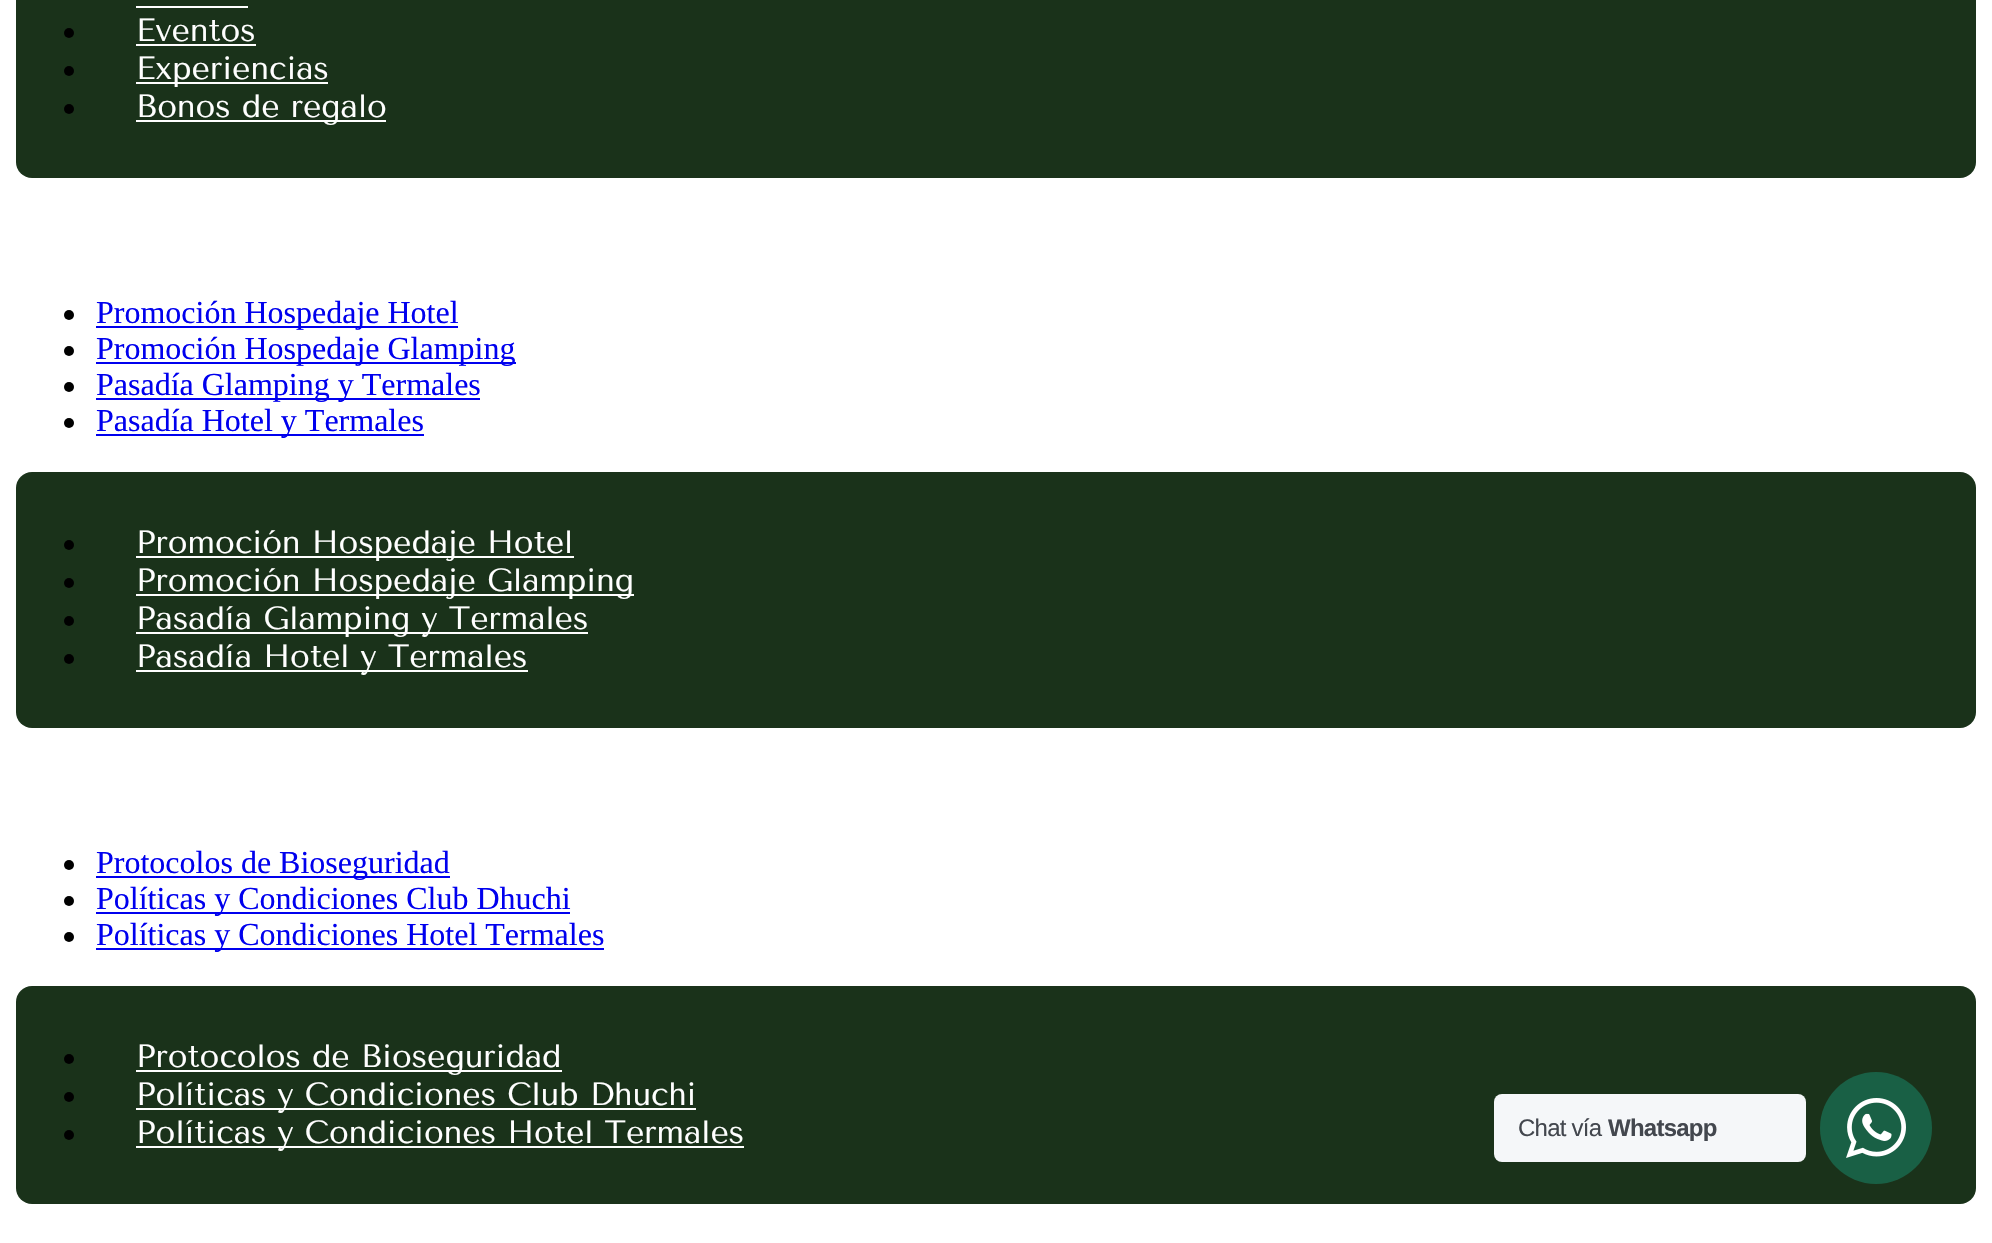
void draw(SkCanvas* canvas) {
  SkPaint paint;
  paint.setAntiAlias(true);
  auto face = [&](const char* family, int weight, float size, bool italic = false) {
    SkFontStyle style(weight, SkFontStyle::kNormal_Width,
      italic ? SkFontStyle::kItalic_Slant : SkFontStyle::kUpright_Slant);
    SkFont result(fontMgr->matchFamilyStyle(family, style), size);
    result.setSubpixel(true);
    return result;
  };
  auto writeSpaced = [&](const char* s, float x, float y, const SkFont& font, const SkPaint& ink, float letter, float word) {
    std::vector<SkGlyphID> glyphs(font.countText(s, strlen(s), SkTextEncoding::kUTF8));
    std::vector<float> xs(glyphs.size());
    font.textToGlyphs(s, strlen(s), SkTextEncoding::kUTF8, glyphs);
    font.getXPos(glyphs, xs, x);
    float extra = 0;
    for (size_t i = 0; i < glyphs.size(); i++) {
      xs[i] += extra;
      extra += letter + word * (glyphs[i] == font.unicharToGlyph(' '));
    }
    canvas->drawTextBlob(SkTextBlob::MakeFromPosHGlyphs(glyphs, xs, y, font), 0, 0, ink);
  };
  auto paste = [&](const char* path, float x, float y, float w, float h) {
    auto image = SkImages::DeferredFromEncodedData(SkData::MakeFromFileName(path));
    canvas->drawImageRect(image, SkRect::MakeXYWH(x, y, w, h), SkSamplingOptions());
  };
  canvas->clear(0xffffffff);
  paint.setColor(0xff1a321a);
  canvas->drawRoundRect(SkRect::MakeXYWH(16, -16, 1960, 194), 16, 16, paint);
  paint.setColor(0xffffffff);
  canvas->drawRect(SkRect::MakeXYWH(136, 6, 112, 2), paint);
  paint.setColor(0xff000000);
  canvas->drawCircle(69, 33, 5, paint);
  paint.setColor(0xffffffff);
  canvas->drawRect(SkRect::MakeXYWH(136, 44, 120, 2), paint);
  paint.setColor(0xff000000);
  canvas->drawCircle(69, 71, 5, paint);
  paint.setColor(0xffffffff);
  canvas->drawRect(SkRect::MakeXYWH(136, 82, 192, 2), paint);
  paint.setColor(0xff000000);
  canvas->drawCircle(69, 109, 5, paint);
  paint.setColor(0xffffffff);
  canvas->drawRect(SkRect::MakeXYWH(136, 120, 250, 2), paint);
  paint.setColor(0xff000000);
  canvas->drawCircle(69, 315, 5, paint);
  paint.setColor(0xff0000ee);
  canvas->drawRect(SkRect::MakeXYWH(96, 326, 362, 2), paint);
  paint.setColor(0xff000000);
  canvas->drawCircle(69, 351, 5, paint);
  paint.setColor(0xff0000ee);
  canvas->drawRect(SkRect::MakeXYWH(96, 362, 420, 2), paint);
  paint.setColor(0xff000000);
  canvas->drawCircle(69, 387, 5, paint);
  paint.setColor(0xff0000ee);
  canvas->drawRect(SkRect::MakeXYWH(96, 398, 384, 2), paint);
  paint.setColor(0xff000000);
  canvas->drawCircle(69, 423, 5, paint);
  paint.setColor(0xff0000ee);
  canvas->drawRect(SkRect::MakeXYWH(96, 434, 328, 2), paint);
  paint.setColor(0xff1a321a);
  canvas->drawRoundRect(SkRect::MakeXYWH(16, 472, 1960, 256), 16, 16, paint);
  paint.setColor(0xff000000);
  canvas->drawCircle(69, 545, 5, paint);
  paint.setColor(0xffffffff);
  canvas->drawRect(SkRect::MakeXYWH(136, 556, 438, 2), paint);
  paint.setColor(0xff000000);
  canvas->drawCircle(69, 583, 5, paint);
  paint.setColor(0xffffffff);
  canvas->drawRect(SkRect::MakeXYWH(136, 594, 498, 2), paint);
  paint.setColor(0xff000000);
  canvas->drawCircle(69, 621, 5, paint);
  paint.setColor(0xffffffff);
  canvas->drawRect(SkRect::MakeXYWH(136, 632, 452, 2), paint);
  paint.setColor(0xff000000);
  canvas->drawCircle(69, 659, 5, paint);
  paint.setColor(0xffffffff);
  canvas->drawRect(SkRect::MakeXYWH(136, 670, 392, 2), paint);
  paint.setColor(0xff000000);
  canvas->drawCircle(69, 865, 5, paint);
  paint.setColor(0xff0000ee);
  canvas->drawRect(SkRect::MakeXYWH(96, 876, 354, 2), paint);
  paint.setColor(0xff000000);
  canvas->drawCircle(69, 901, 5, paint);
  paint.setColor(0xff0000ee);
  canvas->drawRect(SkRect::MakeXYWH(96, 912, 474, 2), paint);
  paint.setColor(0xff000000);
  canvas->drawCircle(69, 937, 5, paint);
  paint.setColor(0xff0000ee);
  canvas->drawRect(SkRect::MakeXYWH(96, 948, 508, 2), paint);
  paint.setColor(0xff1a321a);
  canvas->drawRoundRect(SkRect::MakeXYWH(16, 986, 1960, 218), 16, 16, paint);
  paint.setColor(0xff000000);
  canvas->drawCircle(69, 1059, 5, paint);
  paint.setColor(0xffffffff);
  canvas->drawRect(SkRect::MakeXYWH(136, 1070, 426, 2), paint);
  paint.setColor(0xff000000);
  canvas->drawCircle(69, 1097, 5, paint);
  paint.setColor(0xffffffff);
  canvas->drawRect(SkRect::MakeXYWH(136, 1108, 560, 2), paint);
  paint.setColor(0xff000000);
  canvas->drawCircle(69, 1135, 5, paint);
  paint.setColor(0xffffffff);
  canvas->drawRect(SkRect::MakeXYWH(136, 1146, 608, 2), paint);
  paint.setColor(0xfff5f7f9);
  canvas->drawRoundRect(SkRect::MakeXYWH(1494, 1094, 312, 68), 8, 8, paint);
  paint.setColor(0xff196045);
  canvas->drawCircle(1876, 1128, 56, paint);
  paste("img/1.png", 1846, 1098, 60, 60);
  auto f0 = face("Tenor Sans", 400, 32);
  paint.setColor(0xffffffff);
  {
    const struct { const char* s; float x, y; } items[] = {
      {"Eventos", 136, 41},
      {"Experiencias", 136, 79},
      {"Bonos de regalo", 136, 117},
    };
    for (auto [s, x, y] : items) {
      canvas->drawString(s, x, y, f0, paint);
    }
  }
  auto f1 = face("Liberation Serif", 400, 32);
  paint.setColor(0xff0000ee);
  {
    const struct { const char* s; float x, y; } items[] = {
      {"Promoción Hospedaje Hotel", 96, 323},
      {"Promoción Hospedaje Glamping", 96, 359},
      {"Pasadía Glamping y Termales", 96, 395},
      {"Pasadía Hotel y Termales", 96, 431},
    };
    for (auto [s, x, y] : items) {
      canvas->drawString(s, x, y, f1, paint);
    }
  }
  paint.setColor(0xffffffff);
  {
    const struct { const char* s; float x, y; } items[] = {
      {"Promoción Hospedaje Hotel", 136, 553},
      {"Promoción Hospedaje Glamping", 136, 591},
      {"Pasadía Glamping y Termales", 136, 629},
      {"Pasadía Hotel y Termales", 136, 667},
    };
    for (auto [s, x, y] : items) {
      canvas->drawString(s, x, y, f0, paint);
    }
  }
  paint.setColor(0xff0000ee);
  {
    const struct { const char* s; float x, y; } items[] = {
      {"Protocolos de Bioseguridad", 96, 873},
      {"Políticas y Condiciones Club Dhuchi", 96, 909},
      {"Políticas y Condiciones Hotel Termales", 96, 945},
    };
    for (auto [s, x, y] : items) {
      canvas->drawString(s, x, y, f1, paint);
    }
  }
  paint.setColor(0xffffffff);
  {
    const struct { const char* s; float x, y; } items[] = {
      {"Protocolos de Bioseguridad", 136, 1067},
      {"Políticas y Condiciones Club Dhuchi", 136, 1105},
      {"Políticas y Condiciones Hotel Termales", 136, 1143},
    };
    for (auto [s, x, y] : items) {
      canvas->drawString(s, x, y, f0, paint);
    }
  }
  auto f2 = face("Liberation Sans", 400, 24);
  paint.setColor(0xff43474e);
  writeSpaced("Chat vía", 1518, 1136, f2, paint, -0.75f, 0);
  auto f3 = face("Liberation Sans", 700, 24);
  writeSpaced("Whatsapp", 1608, 1136, f3, paint, -0.75f, 0);
}
